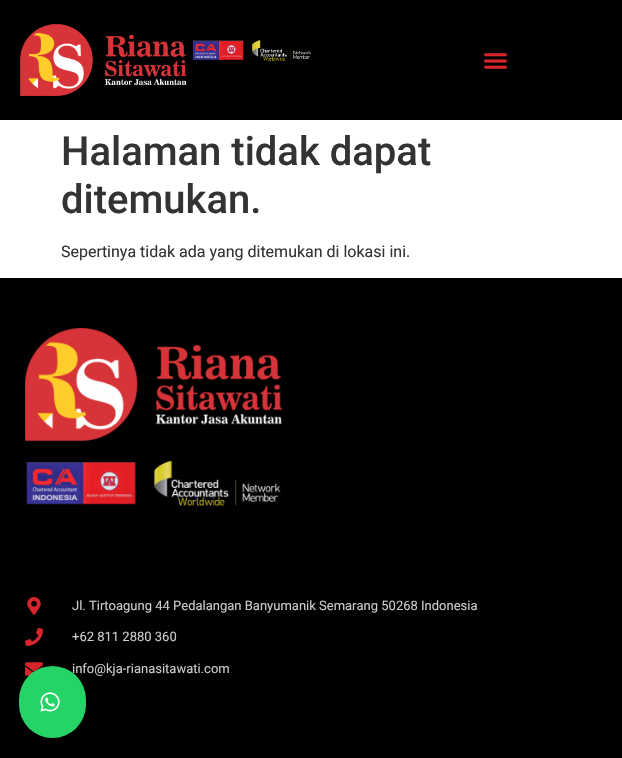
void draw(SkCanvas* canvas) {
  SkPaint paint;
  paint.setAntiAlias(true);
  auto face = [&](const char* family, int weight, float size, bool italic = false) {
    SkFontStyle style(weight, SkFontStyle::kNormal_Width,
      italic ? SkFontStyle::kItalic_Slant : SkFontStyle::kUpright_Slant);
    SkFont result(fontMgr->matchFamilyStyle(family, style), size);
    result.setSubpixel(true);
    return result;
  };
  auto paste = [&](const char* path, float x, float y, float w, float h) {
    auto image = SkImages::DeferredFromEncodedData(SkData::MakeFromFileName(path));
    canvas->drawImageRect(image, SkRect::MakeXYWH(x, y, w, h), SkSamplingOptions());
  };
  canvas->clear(0xffffffff);
  paint.setColor(0xff000000);
  canvas->drawRect(SkRect::MakeXYWH(0, 0, 622, 120), paint);
  paste("img/1.png", 20, 23, 291, 74);
  paste("img/2.png", 484, 53, 23, 16);
  canvas->drawRect(SkRect::MakeXYWH(0, 278, 622, 480), paint);
  paste("img/3.png", 25, 328, 257, 178);
  paste("img/5.png", 27, 597, 14, 18);
  paste("img/6.png", 25, 628, 18, 18);
  paste("img/7.png", 25, 662, 18, 14);
  auto f0 = face("Roboto", 500, 40);
  paint.setColor(0xff333333);
  canvas->drawString("Halaman tidak dapat", 61, 165, f0, paint);
  canvas->drawString("ditemukan.", 61, 213, f0, paint);
  auto f1 = face("Roboto", 400, 16);
  canvas->drawString("Sepertinya tidak ada yang ditemukan di lokasi ini.", 61, 257, f1, paint);
  auto f2 = face("Roboto", 400, 13);
  paint.setColor(0xffcccccc);
  {
    const struct { const char* s; float x, y; } items[] = {
      {"Jl. Tirtoagung 44 Pedalangan Banyumanik Semarang 50268 Indonesia", 72, 610},
      {"+62 811 2880 360", 72, 641},
      {"info@kja-rianasitawati.com", 72, 673},
    };
    for (auto [s, x, y] : items) {
      canvas->drawString(s, x, y, f2, paint);
    }
  }
  paint.setColor(0xff25d366);
  canvas->drawRoundRect(SkRect::MakeXYWH(19, 666, 67, 72), 33.5f, 33.5f, paint);
  paste("img/4.png", 40, 692, 20, 20);
}
